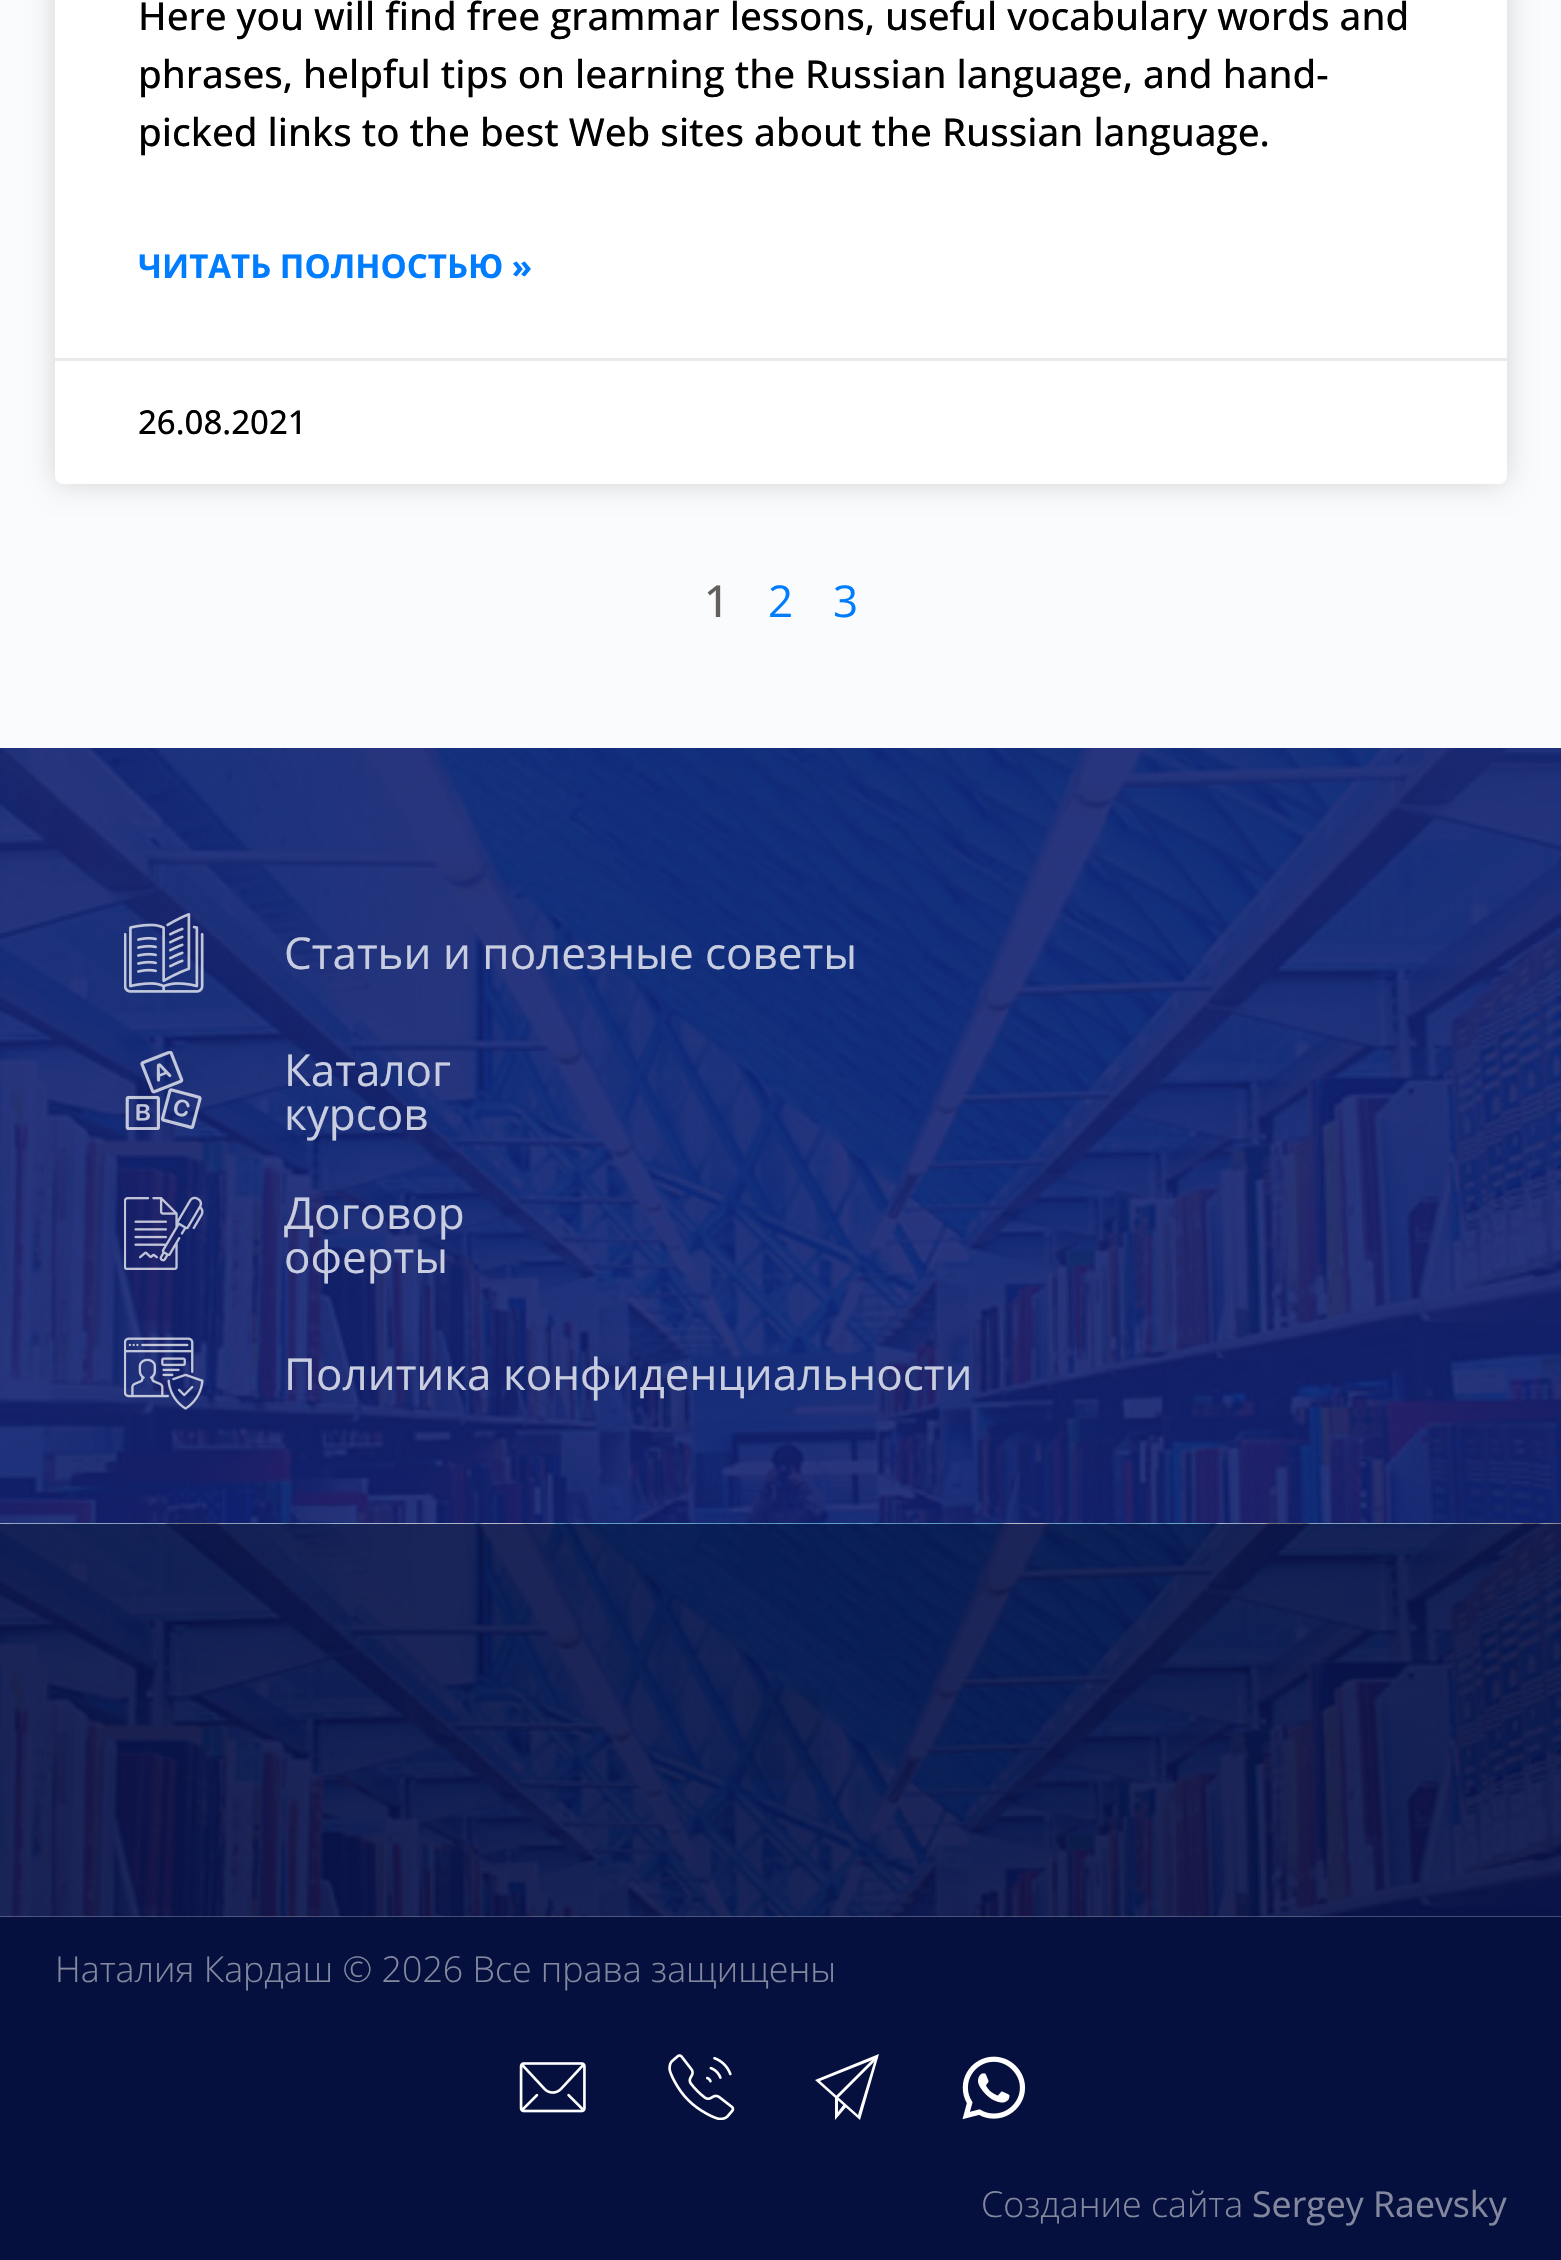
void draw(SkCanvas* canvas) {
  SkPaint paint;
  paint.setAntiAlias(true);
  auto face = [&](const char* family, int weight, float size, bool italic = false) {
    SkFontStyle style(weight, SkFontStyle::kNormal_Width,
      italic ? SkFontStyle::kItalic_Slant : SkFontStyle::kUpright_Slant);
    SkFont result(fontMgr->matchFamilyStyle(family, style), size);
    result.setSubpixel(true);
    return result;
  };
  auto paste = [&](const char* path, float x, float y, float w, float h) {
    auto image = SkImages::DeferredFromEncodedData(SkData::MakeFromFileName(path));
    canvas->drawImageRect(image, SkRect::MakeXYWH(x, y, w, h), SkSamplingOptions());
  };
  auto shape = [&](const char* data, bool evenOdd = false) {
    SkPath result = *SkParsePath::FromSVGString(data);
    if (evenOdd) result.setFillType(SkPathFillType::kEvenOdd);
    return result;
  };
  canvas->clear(0xfffafbfd);
  paint.setColor(0x26000000);
  paint.setMaskFilter(SkMaskFilter::MakeBlur(kNormal_SkBlurStyle, 14));
  canvas->drawRoundRect(SkRect::MakeXYWH(55, -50, 1452, 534), 8, 8, paint);
  paint.setMaskFilter(nullptr);
  paint.setColor(0xffffffff);
  canvas->drawRoundRect(SkRect::MakeXYWH(55, -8, 1452, 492), 8, 8, paint);
  paint.setColor(0xffeaeaea);
  canvas->drawRect(SkRect::MakeXYWH(55, 358, 1452, 3), paint);
  paste("img/1.png", 0, 748, 1561, 776);
  paste("img/2.png", 124, 913, 80, 80);
  paste("img/3.png", 125, 1051, 77, 79);
  paste("img/4.png", 124, 1196, 80, 74);
  paste("img/5.png", 124, 1337, 80, 73);
  paste("img/6.png", 0, 1523, 1561, 394);
  paint.setColor(0x0d000000);
  canvas->drawRect(SkRect::MakeXYWH(743, 1689, 77, 90), paint);
  paint.setColor(0xff06103e);
  canvas->drawRect(SkRect::MakeXYWH(0, 1917, 1561, 343), paint);
  paste("img/7.png", 519, 2062, 67, 51);
  paste("img/8.png", 668, 2054, 67, 66);
  paint.setColor(0xffffffff);
  canvas->drawPath(shape("M860 2120L815 2080L879 2054ZM820 2081L858 2115L875 2059Z"), paint);
  canvas->drawPath(shape("M835 2120V2097L876 2056L878 2058L838 2098V2112L844 2104L847 2106Z"), paint);
  paste("img/9.png", 962, 2056, 64, 64);
  auto f0 = face("Open Sans", 500, 38.5f);
  paint.setColor(0xff000000);
  {
    const struct { const char* s; float x, y; } items[] = {
      {"Here you will find free grammar lessons, useful vocabulary words and", 138, 30},
      {"phrases, helpful tips on learning the Russian language, and hand-", 138, 88},
      {"picked links to the best Web sites about the Russian language.", 138, 146},
    };
    for (auto [s, x, y] : items) {
      canvas->drawString(s, x, y, f0, paint);
    }
  }
  auto f1 = face("Open Sans", 700, 33);
  paint.setColor(0xff007cff);
  canvas->drawString("ЧИТАТЬ ПОЛНОСТЬЮ »", 138, 278, f1, paint);
  auto f2 = face("Open Sans", 500, 33);
  paint.setColor(0xff000000);
  canvas->drawString("26.08.2021", 138, 434, f2, paint);
  auto f3 = face("Open Sans", 500, 44);
  paint.setColor(0xff625f5f);
  canvas->drawString("1", 704, 617, f3, paint);
  auto f4 = face("Open Sans", 400, 44);
  paint.setColor(0xff007cff);
  canvas->drawString("2", 768, 617, f4, paint);
  canvas->drawString("3", 833, 617, f4, paint);
  paint.setColor(0xffc8cde0);
  {
    const struct { const char* s; float x, y; } items[] = {
      {"Статьи и полезные советы", 284, 969},
      {"Каталог", 284, 1086},
      {"курсов", 284, 1130},
      {"Договор", 284, 1229},
      {"оферты", 284, 1273},
      {"Политика конфиденциальности", 284, 1390},
    };
    for (auto [s, x, y] : items) {
      canvas->drawString(s, x, y, f4, paint);
    }
  }
  auto f5 = face("Open Sans", 300, 35.75f);
  paint.setColor(0xff83889f);
  canvas->drawString("Наталия Кардаш © 2026 Все права защищены", 55, 1982, f5, paint);
  canvas->drawString("Создание сайта", 981, 2217, f5, paint);
  auto f6 = face("Open Sans", 400, 35.75f);
  canvas->drawString("Sergey Raevsky", 1252, 2217, f6, paint);
}
